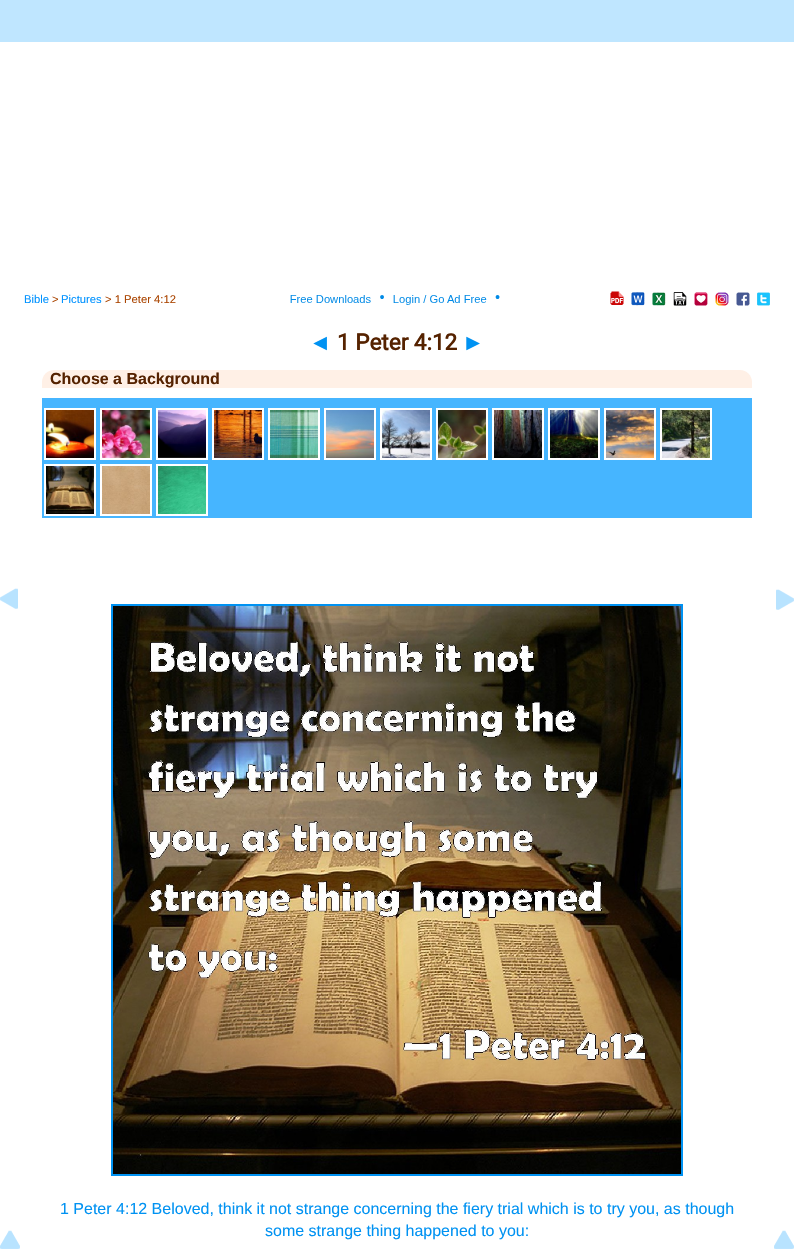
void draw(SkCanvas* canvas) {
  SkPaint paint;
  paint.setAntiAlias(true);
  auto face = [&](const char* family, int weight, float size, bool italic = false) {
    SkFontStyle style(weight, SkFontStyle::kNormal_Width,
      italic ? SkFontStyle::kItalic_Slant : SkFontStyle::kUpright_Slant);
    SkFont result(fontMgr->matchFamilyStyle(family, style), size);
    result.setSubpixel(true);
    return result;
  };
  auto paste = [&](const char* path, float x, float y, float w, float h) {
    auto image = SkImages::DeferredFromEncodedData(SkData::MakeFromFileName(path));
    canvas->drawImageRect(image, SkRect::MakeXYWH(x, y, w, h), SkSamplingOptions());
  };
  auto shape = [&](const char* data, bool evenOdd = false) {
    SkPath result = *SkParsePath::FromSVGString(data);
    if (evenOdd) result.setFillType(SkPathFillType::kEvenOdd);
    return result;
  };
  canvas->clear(0xffffffff);
  paint.setColor(0xffbfe6ff);
  canvas->drawRect(SkRect::MakeXYWH(0, 0, 794, 42), paint);
  paste("img/1.png", 290, 295, 210, 10);
  paste("img/2.png", 610, 291, 160, 15);
  paste("img/3.png", 0, 588, 18, 21);
  paint.setColor(0xfffff0e6);
  canvas->drawPath(shape("M54 370H740C746.5 370 752 375.5 752 382V388H42V382C42 375.5 47.5 370 54 370Z"), paint);
  paste("img/4.png", 42, 398, 710, 120);
  paint.setStroke(true);
  paint.setStrokeWidth(2);
  paint.setColor(0xff0092f2);
  canvas->drawRect(SkRect::MakeXYWH(112, 605, 570, 570), paint);
  paste("img/5.png", 113, 606, 568, 568);
  paste("img/6.png", 776, 589, 18, 21);
  paste("img/7.png", 0, 1230, 20, 19);
  paste("img/7.png", 774, 1230, 20, 19);
  auto f0 = face("Liberation Sans", 400, 11.25f);
  paint.setStroke(false);
  paint.setColor(0xff0092ff);
  canvas->drawString("Bible", 24, 303, f0, paint);
  paint.setColor(0xffaa4400);
  canvas->drawString(">", 52, 303, f0, paint);
  paint.setColor(0xff0092ff);
  canvas->drawString("Pictures", 61, 303, f0, paint);
  paint.setColor(0xffaa4400);
  canvas->drawString("> 1 Peter 4:12", 105, 303, f0, paint);
  auto f1 = face("Liberation Sans", 700, 22.5f);
  paint.setColor(0xff0092f2);
  canvas->drawString("◄", 309, 350, f1, paint);
  auto f2 = face("Roboto", 700, 22.5f);
  paint.setColor(0xff552200);
  canvas->drawString("1 Peter 4:12", 337, 350, f2, paint);
  paint.setColor(0xff0092f2);
  canvas->drawString("►", 462, 350, f1, paint);
  auto f3 = face("Liberation Sans", 700, 16);
  paint.setColor(0xff552200);
  canvas->drawString("Choose a Background", 50, 384, f3, paint);
  auto f4 = face("Liberation Sans", 400, 16);
  paint.setColor(0xff0092f2);
  canvas->drawString("1 Peter 4:12 Beloved, think it not strange concerning the fiery trial which is to try you, as though", 60, 1214, f4, paint);
  canvas->drawString("some strange thing happened to you:", 265, 1236, f4, paint);
}
